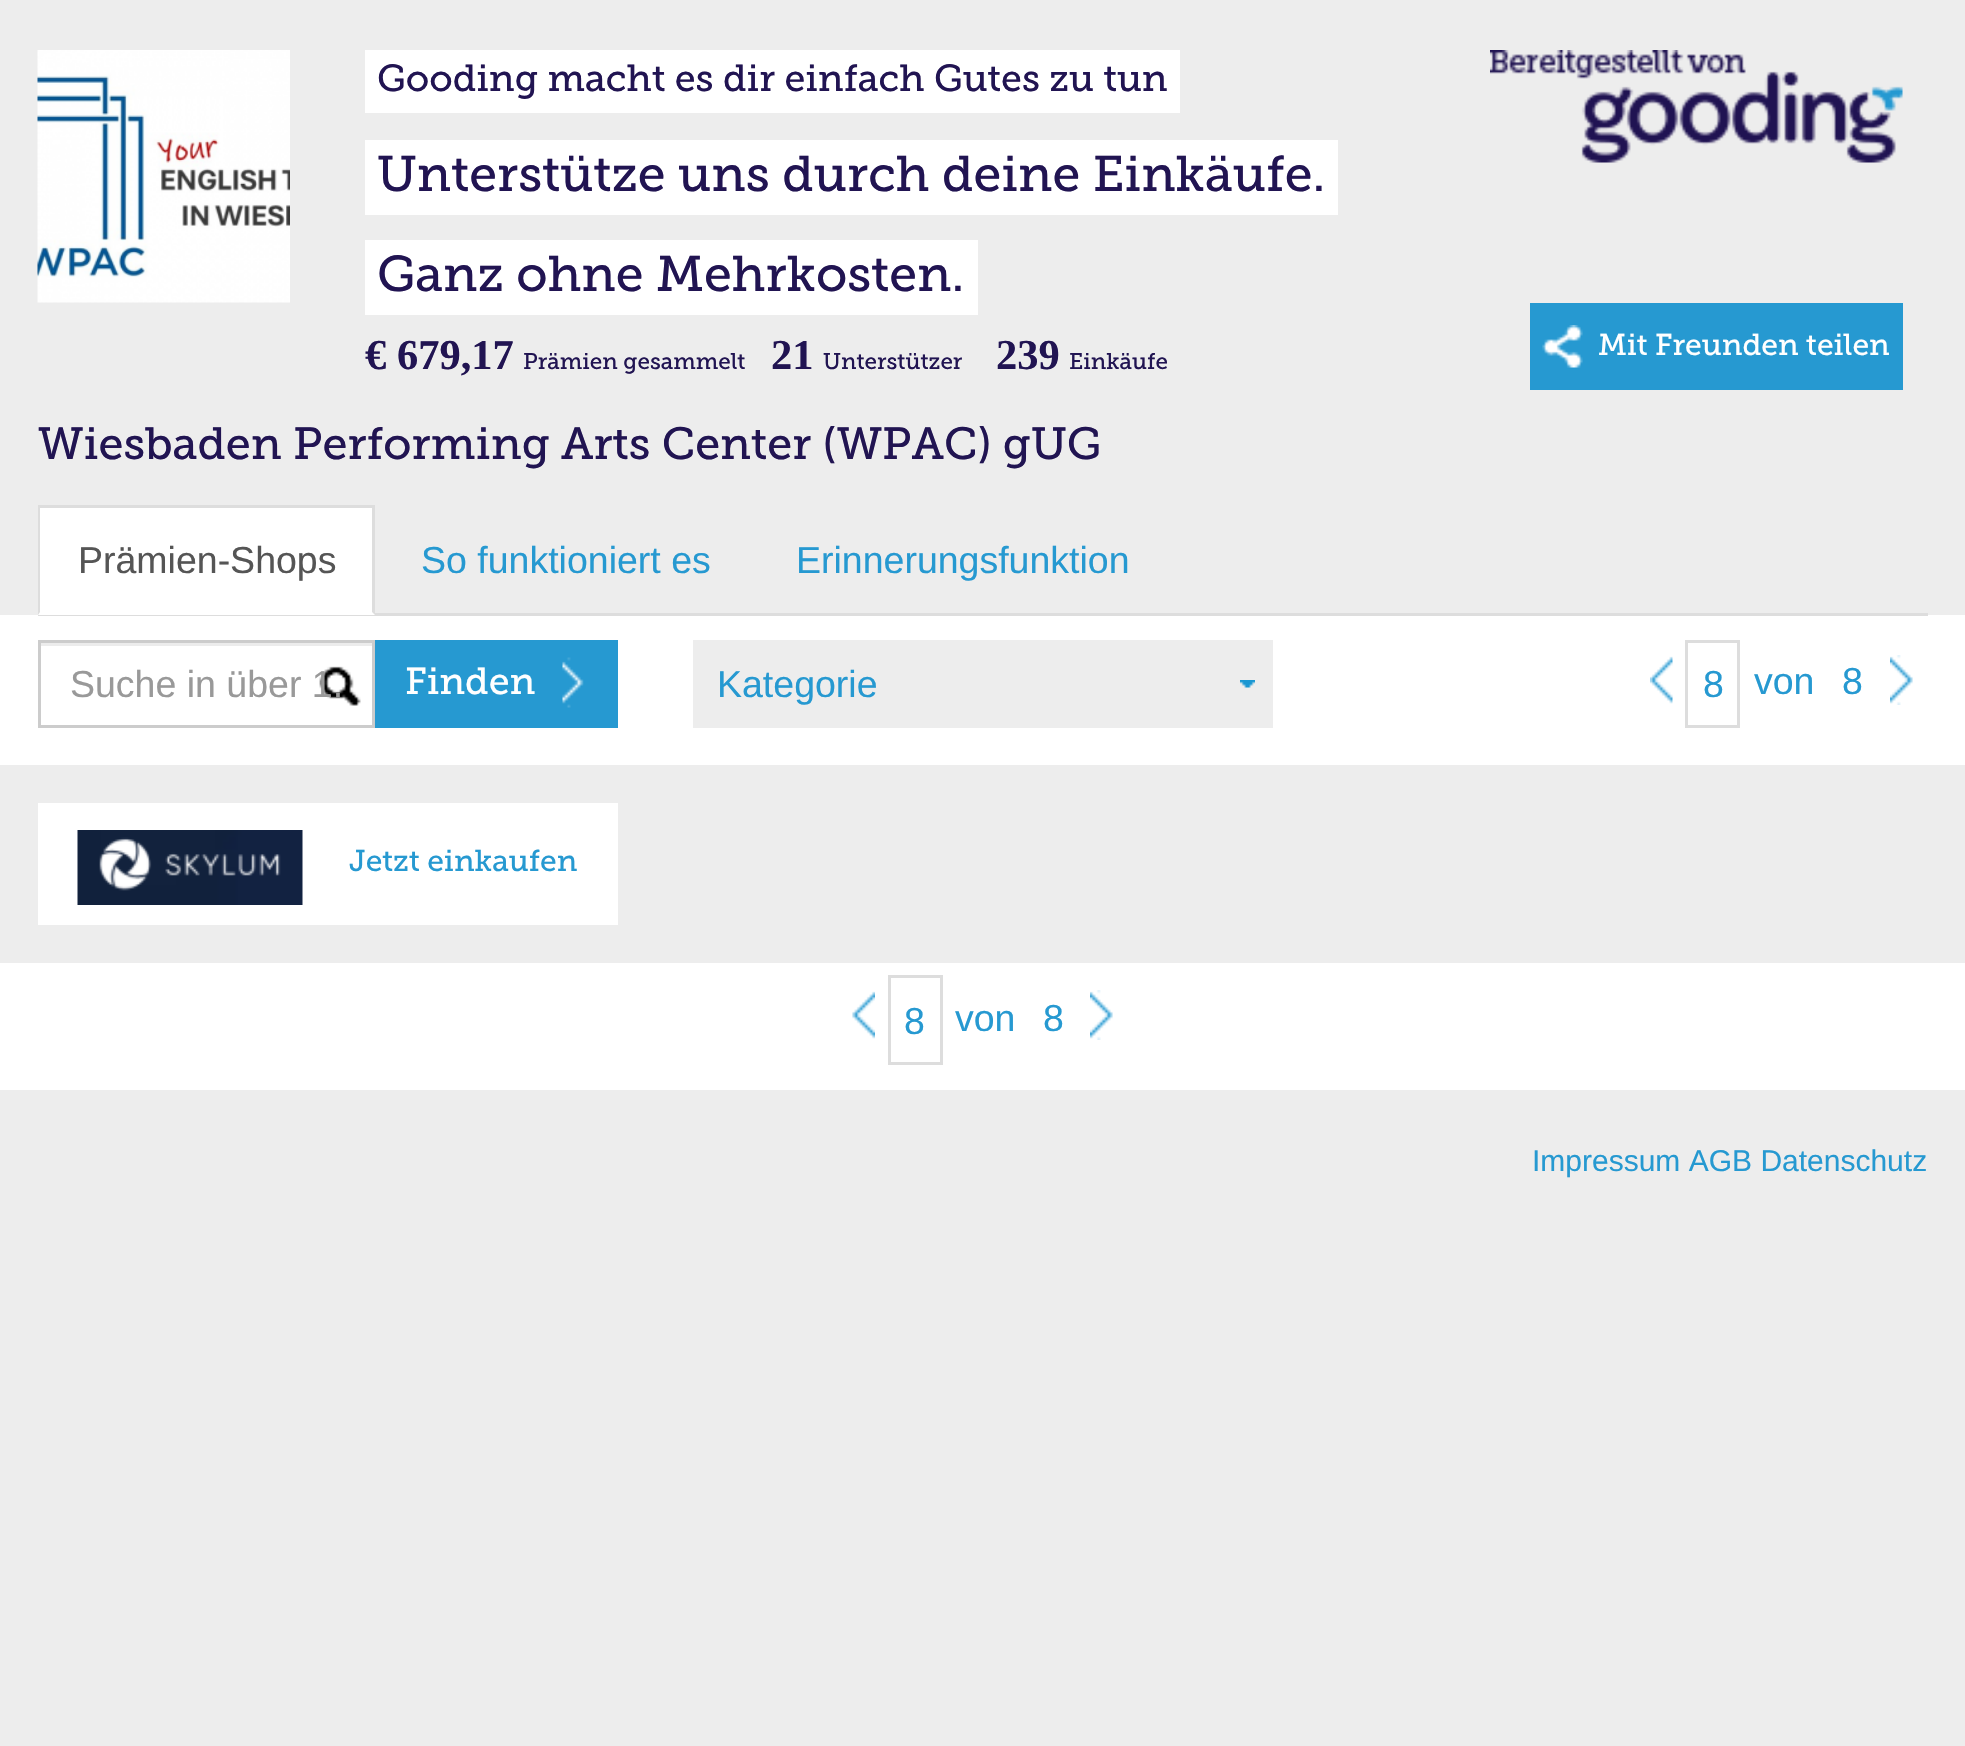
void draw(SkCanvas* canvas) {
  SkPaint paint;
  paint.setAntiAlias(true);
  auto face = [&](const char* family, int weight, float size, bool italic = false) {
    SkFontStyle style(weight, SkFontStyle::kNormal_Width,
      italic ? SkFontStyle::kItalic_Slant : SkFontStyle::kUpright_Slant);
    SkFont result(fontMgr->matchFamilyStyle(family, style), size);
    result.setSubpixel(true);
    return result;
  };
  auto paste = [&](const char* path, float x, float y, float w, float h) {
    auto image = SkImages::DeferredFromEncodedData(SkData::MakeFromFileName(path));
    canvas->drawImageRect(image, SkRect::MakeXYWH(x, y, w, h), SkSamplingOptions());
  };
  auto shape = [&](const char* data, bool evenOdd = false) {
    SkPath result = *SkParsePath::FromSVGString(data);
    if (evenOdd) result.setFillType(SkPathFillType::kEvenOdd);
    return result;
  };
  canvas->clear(0xffededed);
  paste("img/1.png", 37, 50, 253, 253);
  {
    const struct { float x, y, w, h; SkColor color; } items[] = {
      {365, 50, 815, 63, 0xffffffff},
      {365, 140, 973, 75, 0xffffffff},
      {365, 240, 613, 75, 0xffffffff},
    };
    for (auto [x, y, w, h, color] : items) {
      paint.setColor(color);
      canvas->drawRect(SkRect::MakeXYWH(x, y, w, h), paint);
    }
  }
  paste("img/2.png", 1490, 50, 413, 113);
  paint.setColor(0xff2699d1);
  canvas->drawRect(SkRect::MakeXYWH(1530, 303, 373, 87), paint);
  paste("img/3.png", 1542, 325, 41, 43);
  {
    const struct { float x, y, w, h; SkColor color; } items[] = {
      {0, 615, 1965, 150, 0xffffffff},
      {38, 613, 1890, 3, 0xffdddddd},
      {38, 508, 337, 107, 0xffffffff},
      {38, 505, 337, 3, 0xffdddddd},
    };
    for (auto [x, y, w, h, color] : items) {
      paint.setColor(color);
      canvas->drawRect(SkRect::MakeXYWH(x, y, w, h), paint);
    }
  }
  canvas->drawPath(shape("M375 505V615L372 612V508Z"), paint);
  canvas->drawPath(shape("M38 615V505L40 508V612Z"), paint);
  paste("img/4.png", 319, 666, 42, 40);
  paint.setColor(0xffececec);
  canvas->drawRect(SkRect::MakeXYWH(40, 643, 333, 3), paint);
  paint.setStroke(true);
  paint.setStrokeWidth(3);
  paint.setColor(0xffcccccc);
  canvas->drawRect(SkRect::MakeXYWH(39.5f, 641.5f, 334, 85), paint);
  paint.setStroke(false);
  paint.setColor(0xff2699d1);
  canvas->drawRect(SkRect::MakeXYWH(375, 640, 243, 88), paint);
  paste("img/5.png", 562, 657, 22, 51);
  paint.setColor(0xffededed);
  canvas->drawRect(SkRect::MakeXYWH(693, 640, 580, 88), paint);
  paste("img/6.png", 1240, 680, 15, 8);
  paste("img/7.png", 1650, 656, 23, 48);
  paint.setStroke(true);
  paint.setColor(0xffdddddd);
  canvas->drawRect(SkRect::MakeXYWH(1686.5f, 641.5f, 52, 85), paint);
  paste("img/8.png", 1890, 655, 23, 50);
  paint.setStroke(false);
  paint.setColor(0xffffffff);
  canvas->drawRect(SkRect::MakeXYWH(38, 803, 580, 122), paint);
  paste("img/9.png", 77, 830, 226, 75);
  canvas->drawRect(SkRect::MakeXYWH(0, 963, 1965, 127), paint);
  paste("img/10.png", 852, 991, 23, 48);
  paint.setStroke(true);
  paint.setColor(0xffdddddd);
  canvas->drawRect(SkRect::MakeXYWH(889.5f, 976.5f, 52, 87), paint);
  paste("img/8.png", 1090, 990, 23, 50);
  auto f0 = face("Museo Slab", 400, 37.5f);
  paint.setStroke(false);
  paint.setColor(0xff211452);
  canvas->drawString("Gooding macht es dir einfach Gutes zu tun", 377, 91, f0, paint);
  auto f1 = face("Museo Slab", 400, 50);
  canvas->drawString("Unterstütze uns durch deine Einkäufe.", 377, 191, f1, paint);
  canvas->drawString("Ganz ohne Mehrkosten.", 377, 291, f1, paint);
  auto f2 = face("Liberation Serif", 700, 42.5f);
  canvas->drawString("€ 679,17", 365, 369, f2, paint);
  auto f3 = face("Museo Slab", 400, 22.5f);
  canvas->drawString("Prämien gesammelt", 523, 369, f3, paint);
  canvas->drawString("21", 771, 369, f2, paint);
  canvas->drawString("Unterstützer", 823, 369, f3, paint);
  canvas->drawString("239", 996, 369, f2, paint);
  canvas->drawString("Einkäufe", 1069, 369, f3, paint);
  auto f4 = face("Museo Slab", 400, 30);
  paint.setColor(0xffffffff);
  canvas->drawString("Mit Freunden teilen", 1598, 355, f4, paint);
  auto f5 = face("Museo Slab", 400, 45);
  paint.setColor(0xff211452);
  canvas->drawString("Wiesbaden Performing Arts Center (WPAC) gUG", 38, 459, f5, paint);
  auto f6 = face("Liberation Sans", 400, 37.5f);
  paint.setColor(0xff555555);
  canvas->drawString("Prämien-Shops", 78, 573, f6, paint);
  paint.setColor(0xff2699d1);
  canvas->drawString("So funktioniert es", 421, 573, f6, paint);
  canvas->drawString("Erinnerungsfunktion", 796, 573, f6, paint);
  paint.setColor(0xff999999);
  canvas->drawString("Suche in über 1.", 70, 697, f6, paint);
  paint.setColor(0xffffffff);
  canvas->drawString("Finden", 405, 694, f0, paint);
  paint.setColor(0xff2699d1);
  {
    const struct { const char* s; float x, y; } items[] = {
      {"Kategorie", 717, 697},
      {"8", 1703, 697},
      {"von", 1754, 694},
      {"8", 1842, 694},
    };
    for (auto [s, x, y] : items) {
      canvas->drawString(s, x, y, f6, paint);
    }
  }
  canvas->drawString("Jetzt einkaufen", 349, 871, f4, paint);
  {
    const struct { const char* s; float x, y; } items[] = {
      {"8", 904, 1034},
      {"von", 955, 1031},
      {"8", 1043, 1031},
    };
    for (auto [s, x, y] : items) {
      canvas->drawString(s, x, y, f6, paint);
    }
  }
  auto f7 = face("Liberation Sans", 400, 30);
  canvas->drawString("Impressum AGB Datenschutz", 1532, 1171, f7, paint);
}
